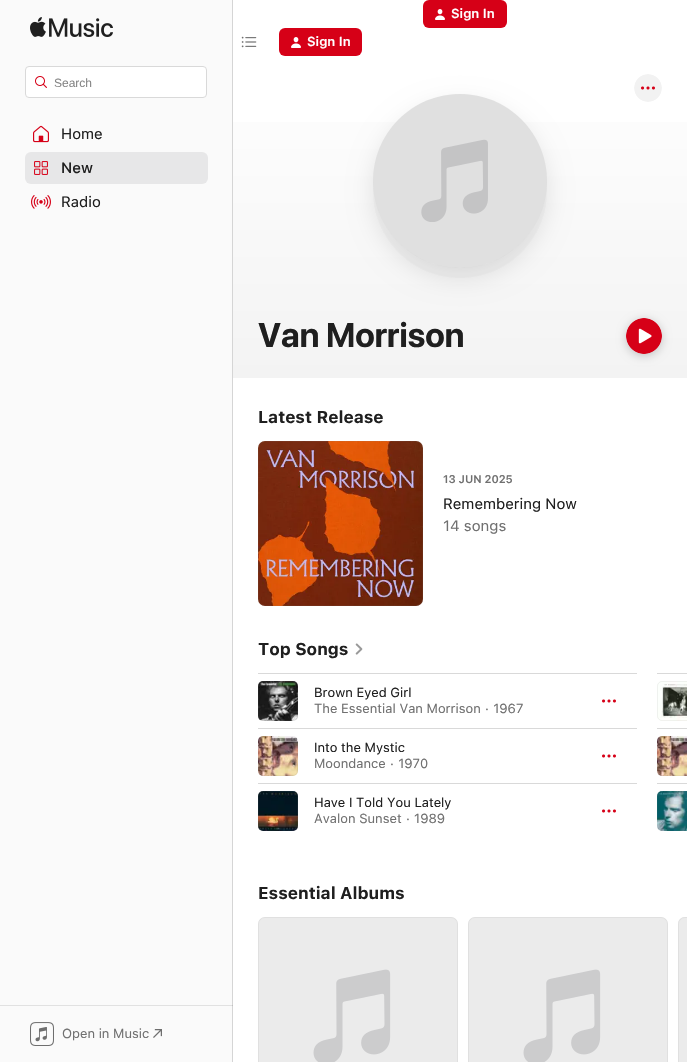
void draw(SkCanvas* canvas) {
  SkPaint paint;
  paint.setAntiAlias(true);
  auto face = [&](const char* family, int weight, float size, bool italic = false) {
    SkFontStyle style(weight, SkFontStyle::kNormal_Width,
      italic ? SkFontStyle::kItalic_Slant : SkFontStyle::kUpright_Slant);
    SkFont result(fontMgr->matchFamilyStyle(family, style), size);
    result.setSubpixel(true);
    return result;
  };
  auto paste = [&](const char* path, float x, float y, float w, float h) {
    auto image = SkImages::DeferredFromEncodedData(SkData::MakeFromFileName(path));
    canvas->drawImageRect(image, SkRect::MakeXYWH(x, y, w, h), SkSamplingOptions());
  };
  auto shape = [&](const char* data, bool evenOdd = false) {
    SkPath result = *SkParsePath::FromSVGString(data);
    if (evenOdd) result.setFillType(SkPathFillType::kEvenOdd);
    return result;
  };
  canvas->clear(0xffffffff);
  paint.setColor(0xffd60017);
  canvas->drawRoundRect(SkRect::MakeXYWH(423, 0, 84, 28), 6, 6, paint);
  paste("img/1.png", 435, 9, 10, 11);
  paste("img/2.png", 241, 36, 16, 12);
  canvas->drawRoundRect(SkRect::MakeXYWH(279, 28, 83, 28), 6, 6, paint);
  paste("img/1.png", 291, 37, 10, 11);
  {
    const struct { float x, y, w, h; SkColor color; } items[] = {
      {0, 0, 232, 1062, 0xfffafafa},
      {0, 1005, 233, 1, 0xffe1e1e1},
      {232, 0, 1, 1062, 0xffd5d5d5},
      {232, 1005, 1, 1, 0xffc0c0c0},
    };
    for (auto [x, y, w, h, color] : items) {
      paint.setColor(color);
      canvas->drawRect(SkRect::MakeXYWH(x, y, w, h), paint);
    }
  }
  paste("img/3.png", 30, 17, 83, 20);
  paint.setColor(0xffffffff);
  canvas->drawRoundRect(SkRect::MakeXYWH(25.5f, 66.5f, 181, 31), 3.5f, 3.5f, paint);
  paint.setStroke(true);
  paint.setStrokeWidth(1);
  paint.setColor(0xffd9d9d9);
  canvas->drawRoundRect(SkRect::MakeXYWH(25.5f, 66.5f, 181, 31), 3.5f, 3.5f, paint);
  paste("img/4.png", 35, 76, 12, 12);
  paste("img/5.png", 33, 125, 16, 18);
  paint.setStroke(false);
  paint.setColor(0xffe7e7e8);
  canvas->drawRoundRect(SkRect::MakeXYWH(25, 152, 183, 32), 6, 6, paint);
  paste("img/6.png", 34, 161, 14, 14);
  paste("img/7.png", 31, 195, 20, 14);
  paste("img/8.png", 30, 1022, 24, 24);
  paste("img/9.png", 153, 1029, 9, 9);
  {
    const SkColor colors[] = {0xffffffff, 0xfff3f3f3};
    const float stops[] = {0, 1};
    const SkPoint ends[] = {{460, 54}, {460, 378}};
    paint.setShader(SkGradientShader::MakeLinear(ends, colors, stops, 2, SkTileMode::kClamp));
    paint.setAlpha(255);
  }
  canvas->drawRect(SkRect::MakeXYWH(233, 122, 454, 256), paint);
  paint.setShader(nullptr);
  paint.setColor(0x1a000000);
  paint.setMaskFilter(SkMaskFilter::MakeBlur(kNormal_SkBlurStyle, 12.5f));
  canvas->drawRoundRect(SkRect::MakeXYWH(373, 104, 174, 174), 87, 87, paint);
  paint.setMaskFilter(nullptr);
  paste("img/11.png", 374, 194, 172, 39);
  paint.setColor(0x0a808080);
  canvas->drawPath(shape("M460 104C508 104 547 143 547 191C547 239 508 278 460 278C412 278 373 239 373 191C373 143 412 104 460 104Z"), paint);
  paint.setColor(0xffebebeb);
  canvas->drawCircle(460, 181, 87, paint);
  paste("img/10.png", 421, 139, 67, 83);
  paint.setColor(0x1a808080);
  canvas->drawPath(shape("M460 94C508 94 547 133 547 181C547 229 508 268 460 268C412 268 373 229 373 181C373 133 412 94 460 94Z"), paint);
  paste("img/12.png", 634, 74, 28, 28);
  paint.setColor(0x33000000);
  paint.setMaskFilter(SkMaskFilter::MakeBlur(kNormal_SkBlurStyle, 5));
  canvas->drawRoundRect(SkRect::MakeXYWH(626, 320, 36, 36), 18, 18, paint);
  paint.setMaskFilter(nullptr);
  paste("img/13.png", 626, 318, 36, 36);
  paste("img/14.png", 258, 441, 165, 165);
  paint.setStroke(true);
  paint.setColor(0x1a808080);
  canvas->drawRoundRect(SkRect::MakeXYWH(258.5f, 441.5f, 164, 164), 6.5f, 6.5f, paint);
  paste("img/15.png", 355, 643, 8, 12);
  paint.setStroke(false);
  paint.setColor(0xffd9d9d9);
  canvas->drawRect(SkRect::MakeXYWH(258, 673, 379, 1), paint);
  paste("img/16.png", 258, 681, 40, 40);
  paint.setStroke(true);
  paint.setColor(0x1a808080);
  canvas->drawRoundRect(SkRect::MakeXYWH(258.5f, 681.5f, 39, 39), 4.5f, 4.5f, paint);
  paste("img/17.png", 602, 699, 14, 4);
  paint.setStroke(false);
  paint.setColor(0xffd9d9d9);
  canvas->drawRect(SkRect::MakeXYWH(657, 673, 30, 1), paint);
  paste("img/18.png", 657, 681, 30, 40);
  paint.setStroke(true);
  paint.setColor(0x1a808080);
  canvas->drawRoundRect(SkRect::MakeXYWH(657.5f, 681.5f, 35, 39), 4.5f, 4.5f, paint);
  paint.setStroke(false);
  paint.setColor(0xffd9d9d9);
  canvas->drawRect(SkRect::MakeXYWH(258, 728, 379, 1), paint);
  paste("img/19.png", 258, 736, 40, 40);
  paint.setStroke(true);
  paint.setColor(0x1a808080);
  canvas->drawRoundRect(SkRect::MakeXYWH(258.5f, 736.5f, 39, 39), 4.5f, 4.5f, paint);
  paste("img/17.png", 602, 754, 14, 4);
  paint.setStroke(false);
  paint.setColor(0xffd9d9d9);
  canvas->drawRect(SkRect::MakeXYWH(657, 728, 30, 1), paint);
  paste("img/20.png", 657, 736, 30, 40);
  paint.setStroke(true);
  paint.setColor(0x1a808080);
  canvas->drawRoundRect(SkRect::MakeXYWH(657.5f, 736.5f, 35, 39), 4.5f, 4.5f, paint);
  paint.setStroke(false);
  paint.setColor(0xffd9d9d9);
  canvas->drawRect(SkRect::MakeXYWH(258, 783, 379, 1), paint);
  paste("img/21.png", 258, 791, 40, 40);
  paint.setStroke(true);
  paint.setColor(0x1a808080);
  canvas->drawRoundRect(SkRect::MakeXYWH(258.5f, 791.5f, 39, 39), 4.5f, 4.5f, paint);
  paste("img/17.png", 602, 809, 14, 4);
  paint.setStroke(false);
  paint.setColor(0xffd9d9d9);
  canvas->drawRect(SkRect::MakeXYWH(657, 783, 30, 1), paint);
  paste("img/22.png", 657, 791, 30, 40);
  paint.setStroke(true);
  paint.setColor(0x1a808080);
  canvas->drawRoundRect(SkRect::MakeXYWH(657.5f, 791.5f, 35, 39), 4.5f, 4.5f, paint);
  paste("img/23.png", 258, 917, 200, 145);
  canvas->drawRoundRect(SkRect::MakeXYWH(258.5f, 917.5f, 199, 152), 6.5f, 6.5f, paint);
  paste("img/24.png", 468, 917, 200, 145);
  canvas->drawRoundRect(SkRect::MakeXYWH(468.5f, 917.5f, 199, 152), 6.5f, 6.5f, paint);
  paint.setStroke(false);
  paint.setColor(0xffebebeb);
  canvas->drawPath(shape("M685 917H687V1062H678V924C678 920 681 917 685 917Z"), paint);
  paste("img/25.png", 678, 917, 7, 7);
  paint.setStroke(true);
  paint.setColor(0x1a808080);
  canvas->drawRoundRect(SkRect::MakeXYWH(678.5f, 917.5f, 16, 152), 6.5f, 6.5f, paint);
  auto f0 = face("SF", 600, 13);
  paint.setStroke(false);
  paint.setColor(0xffffffff);
  canvas->drawString("Sign In", 451, 18, f0, paint);
  canvas->drawString("Sign In", 307, 46, f0, paint);
  auto f1 = face("Liberation Sans", 400, 12);
  paint.setColor(0xff858585);
  canvas->drawString("Search", 54, 87, f1, paint);
  auto f2 = face("SF", 400, 15);
  paint.setColor(0xff1f1f1f);
  canvas->drawString("Home", 61, 139, f2, paint);
  auto f3 = face("SF", 500, 15);
  canvas->drawString("New", 61, 173, f3, paint);
  canvas->drawString("Radio", 61, 207, f2, paint);
  auto f4 = face("SF", 400, 13);
  paint.setColor(0xff707070);
  canvas->drawString("Open in Music", 62, 1038, f4, paint);
  auto f5 = face("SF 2", 700, 34);
  paint.setColor(0xff1f1f1f);
  canvas->drawString("Van Morrison", 258, 347, f5, paint);
  auto f6 = face("SF", 700, 17);
  canvas->drawString("Latest Release", 258, 423, f6, paint);
  auto f7 = face("SF", 600, 11);
  paint.setColor(0xff707070);
  canvas->drawString("13 JUN 2025", 443, 483, f7, paint);
  paint.setColor(0xff1f1f1f);
  canvas->drawString("Remembering Now", 443, 509, f2, paint);
  paint.setColor(0xff707070);
  canvas->drawString("14 songs", 443, 531, f2, paint);
  paint.setColor(0xff1f1f1f);
  canvas->drawString("Top Songs", 258, 655, f6, paint);
  canvas->drawString("Brown Eyed Girl", 314, 697, f4, paint);
  paint.setColor(0xff707070);
  canvas->drawString("The Essential Van Morrison · 1967", 314, 713, f4, paint);
  paint.setColor(0xff1f1f1f);
  canvas->drawString("Into the Mystic", 314, 752, f4, paint);
  paint.setColor(0xff707070);
  canvas->drawString("Moondance · 1970", 314, 768, f4, paint);
  paint.setColor(0xff1f1f1f);
  canvas->drawString("Have I Told You Lately", 314, 807, f4, paint);
  paint.setColor(0xff707070);
  canvas->drawString("Avalon Sunset · 1989", 314, 823, f4, paint);
  paint.setColor(0xff1f1f1f);
  canvas->drawString("Essential Albums", 258, 899, f6, paint);
}
